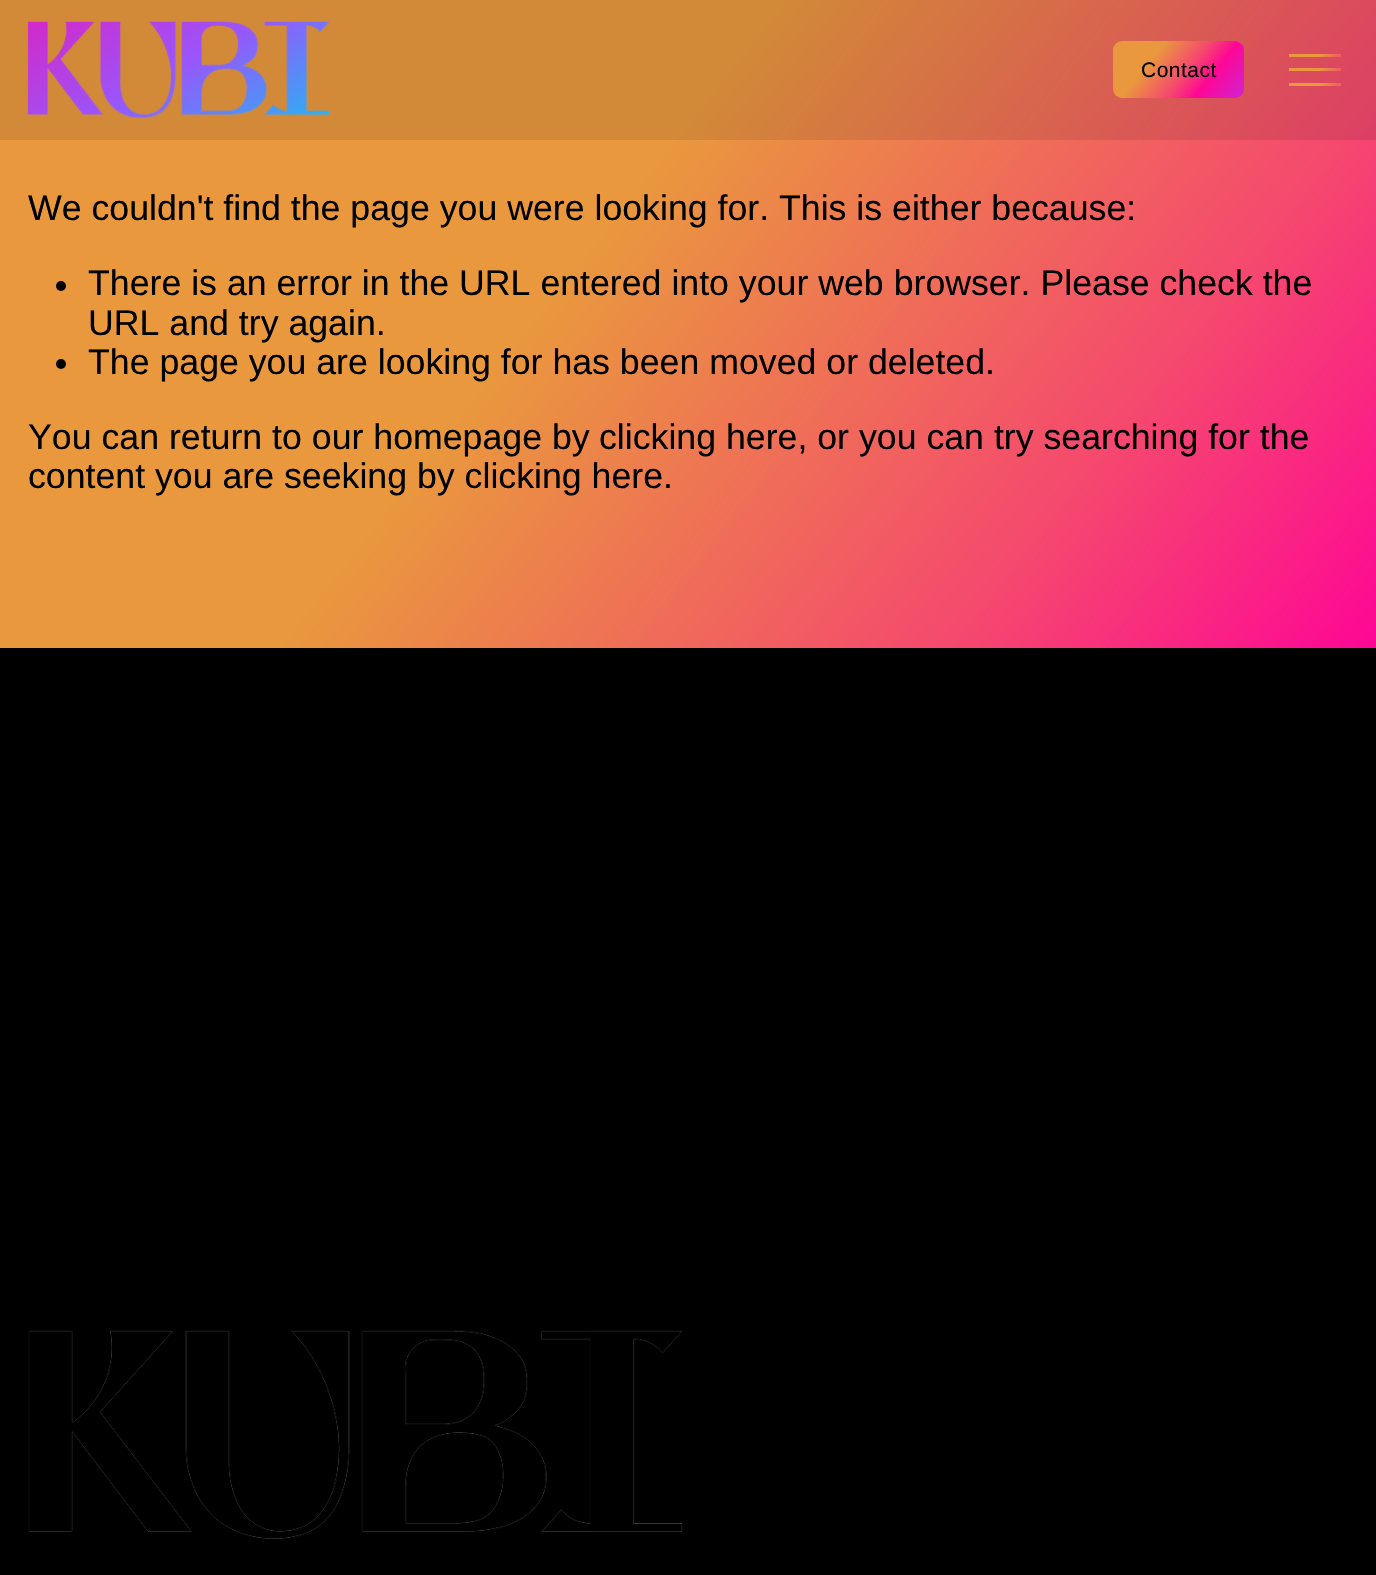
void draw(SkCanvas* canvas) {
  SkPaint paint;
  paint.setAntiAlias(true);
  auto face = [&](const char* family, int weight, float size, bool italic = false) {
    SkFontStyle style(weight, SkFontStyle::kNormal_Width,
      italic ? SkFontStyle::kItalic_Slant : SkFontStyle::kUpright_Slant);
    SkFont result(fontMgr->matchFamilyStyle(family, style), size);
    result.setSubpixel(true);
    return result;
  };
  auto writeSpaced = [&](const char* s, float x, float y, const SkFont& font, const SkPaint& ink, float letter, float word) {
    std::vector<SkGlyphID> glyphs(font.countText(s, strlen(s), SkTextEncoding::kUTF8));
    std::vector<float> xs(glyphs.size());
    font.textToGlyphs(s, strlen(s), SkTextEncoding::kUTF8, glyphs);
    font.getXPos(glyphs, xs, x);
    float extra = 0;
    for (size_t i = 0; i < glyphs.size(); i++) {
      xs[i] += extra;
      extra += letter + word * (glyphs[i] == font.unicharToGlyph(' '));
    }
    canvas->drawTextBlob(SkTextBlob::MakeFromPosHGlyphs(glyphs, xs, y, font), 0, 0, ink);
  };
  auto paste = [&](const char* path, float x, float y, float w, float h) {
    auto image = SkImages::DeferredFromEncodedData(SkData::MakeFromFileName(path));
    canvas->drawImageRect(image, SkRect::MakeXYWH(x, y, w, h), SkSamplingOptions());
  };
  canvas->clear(0xffffffff);
  {
    const SkColor colors[] = {0xffe9983e, 0xfff5486e, 0xfffe0795, 0xffad37fd, 0xff22bbf3};
    const float stops[] = {0.15f, 0.28f, 0.36f, 0.6f, 0.84f};
    const SkPoint ends[] = {{-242, 310}, {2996, 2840}};
    paint.setShader(SkGradientShader::MakeLinear(ends, colors, stops, 5, SkTileMode::kClamp));
    paint.setAlpha(255);
  }
  canvas->drawRect(SkRect::MakeXYWH(0, 140, 1376, 508), paint);
  {
    const SkColor colors[] = {0xffd28938, 0xffdd4163, 0xffe50686, 0xff9c32e4, 0xff1fa8db};
    const float stops[] = {0.15f, 0.28f, 0.36f, 0.6f, 0.84f};
    const SkPoint ends[] = {{-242, 310}, {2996, 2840}};
    paint.setShader(SkGradientShader::MakeLinear(ends, colors, stops, 5, SkTileMode::kClamp));
    paint.setAlpha(255);
  }
  canvas->drawRect(SkRect::MakeXYWH(0, 0, 1376, 140), paint);
  paste("img/1.png", 27, 21, 303, 98);
  {
    const SkColor colors[] = {0xffe9983e, 0xfff5486e, 0xfffe0795, 0xffad37fd, 0xff22bbf3};
    const float stops[] = {0.15f, 0.28f, 0.36f, 0.6f, 0.84f};
    const SkPoint ends[] = {{1135, 13}, {1352, 182}};
    paint.setShader(SkGradientShader::MakeLinear(ends, colors, stops, 5, SkTileMode::kClamp));
    paint.setAlpha(255);
  }
  canvas->drawRoundRect(SkRect::MakeXYWH(1113, 41, 131, 57), 9, 9, paint);
  {
    const SkColor colors[] = {0xffe9983e, 0xfff5486e, 0xfffe0795, 0xffad37fd, 0xff22bbf3};
    const float stops[] = {0.15f, 0.28f, 0.36f, 0.6f, 0.84f};
    const SkPoint ends[] = {{1325, 6}, {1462, 112}};
    paint.setShader(SkGradientShader::MakeLinear(ends, colors, stops, 5, SkTileMode::kClamp));
    paint.setAlpha(255);
  }
  canvas->drawRect(SkRect::MakeXYWH(1289, 54, 52, 3), paint);
  {
    const SkColor colors[] = {0xffe9983e, 0xfff5486e, 0xfffe0795, 0xffad37fd, 0xff22bbf3};
    const float stops[] = {0.15f, 0.28f, 0.36f, 0.6f, 0.84f};
    const SkPoint ends[] = {{1325, 20}, {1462, 127}};
    paint.setShader(SkGradientShader::MakeLinear(ends, colors, stops, 5, SkTileMode::kClamp));
    paint.setAlpha(255);
  }
  canvas->drawRect(SkRect::MakeXYWH(1289, 68, 52, 3), paint);
  {
    const SkColor colors[] = {0xffe9983e, 0xfff5486e, 0xfffe0795, 0xffad37fd, 0xff22bbf3};
    const float stops[] = {0.15f, 0.28f, 0.36f, 0.6f, 0.84f};
    const SkPoint ends[] = {{1325, 35}, {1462, 141}};
    paint.setShader(SkGradientShader::MakeLinear(ends, colors, stops, 5, SkTileMode::kClamp));
    paint.setAlpha(255);
  }
  canvas->drawRect(SkRect::MakeXYWH(1289, 83, 52, 3), paint);
  paint.setShader(nullptr);
  paint.setColor(0xff000000);
  canvas->drawCircle(61, 286, 5, paint);
  canvas->drawCircle(61, 364, 5, paint);
  canvas->drawRect(SkRect::MakeXYWH(0, 648, 1376, 927), paint);
  paste("img/2.png", 28, 1330, 655, 209);
  auto f0 = face("Liberation Sans", 400, 21);
  writeSpaced("Contact", 1141, 77, f0, paint, 0.5f, 0);
  auto f1 = face("Liberation Sans", 400, 35.7f);
  {
    const struct { const char* s; float x, y; } items[] = {
      {"We couldn't find the page you were looking for. This is either because:", 28, 220},
      {"There is an error in the URL entered into your web browser. Please check the", 88, 295},
      {"URL and try again.", 88, 335},
      {"The page you are looking for has been moved or deleted.", 88, 374},
      {"You can return to our homepage by", 28, 449},
      {"clicking here, or you can try searching for the", 599, 449},
      {"content you are seeking by clicking here.", 28, 488},
    };
    for (auto [s, x, y] : items) {
      canvas->drawString(s, x, y, f1, paint);
    }
  }
}
